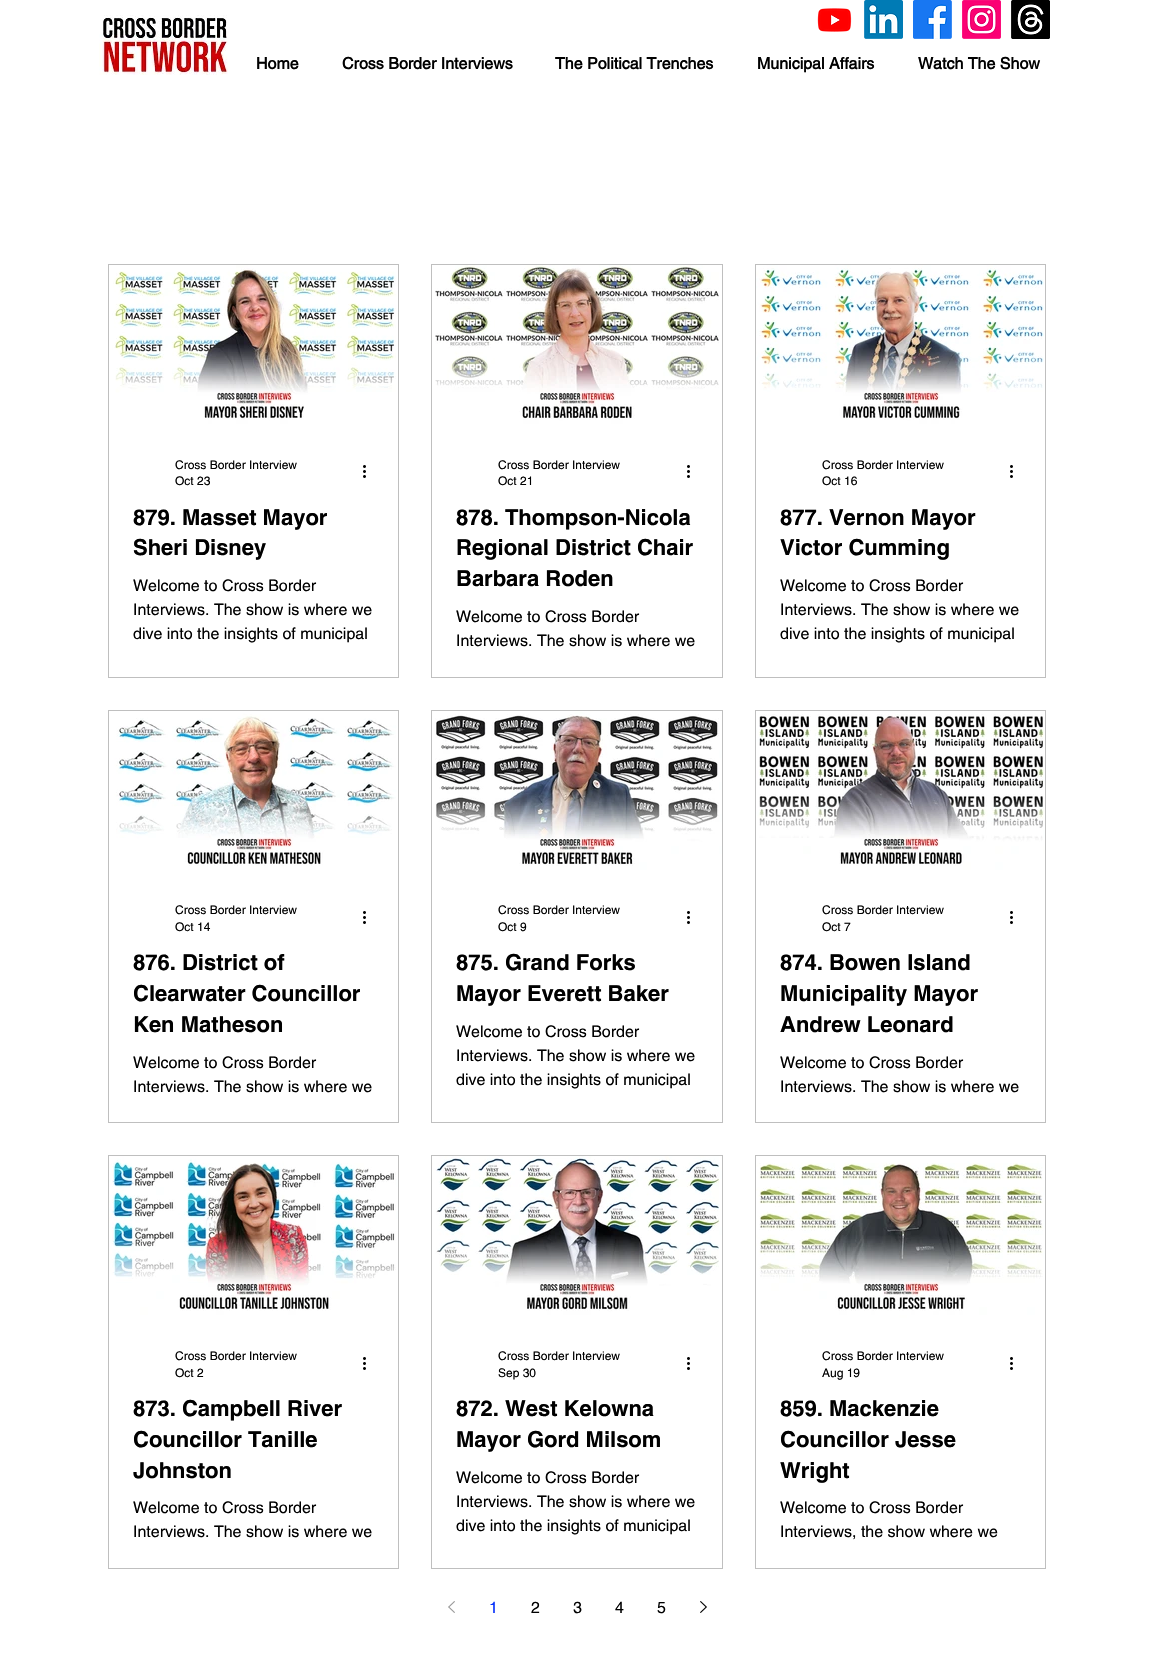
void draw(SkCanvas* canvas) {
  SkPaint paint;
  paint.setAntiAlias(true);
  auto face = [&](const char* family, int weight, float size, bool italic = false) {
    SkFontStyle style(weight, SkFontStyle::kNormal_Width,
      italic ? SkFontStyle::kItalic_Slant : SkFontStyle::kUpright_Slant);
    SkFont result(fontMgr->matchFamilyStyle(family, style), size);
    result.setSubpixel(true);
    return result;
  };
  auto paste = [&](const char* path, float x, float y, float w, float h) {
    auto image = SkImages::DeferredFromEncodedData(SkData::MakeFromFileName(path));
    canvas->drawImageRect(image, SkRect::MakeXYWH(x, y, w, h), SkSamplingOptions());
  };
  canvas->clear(0xffffffff);
  paste("img/1.png", 99, 15, 129, 60);
  paste("img/2.png", 817, 8, 35, 24);
  paste("img/3.png", 864, 0, 39, 39);
  paste("img/4.png", 913, 0, 39, 39);
  paste("img/5.png", 962, 0, 39, 39);
  paste("img/6.png", 1011, 0, 39, 39);
  paint.setStroke(true);
  paint.setStrokeWidth(1);
  paint.setColor(0xffbfbfbf);
  canvas->drawRect(SkRect::MakeXYWH(108.5f, 264.5f, 290, 413), paint);
  paste("img/7.png", 109, 265, 289, 163);
  paste("img/8.png", 363, 465, 3, 13);
  canvas->drawRect(SkRect::MakeXYWH(431.5f, 264.5f, 291, 413), paint);
  paste("img/9.png", 432, 265, 290, 163);
  paste("img/8.png", 687, 465, 3, 13);
  canvas->drawRect(SkRect::MakeXYWH(755.5f, 264.5f, 290, 413), paint);
  paste("img/10.png", 756, 265, 289, 163);
  paste("img/8.png", 1010, 465, 3, 13);
  canvas->drawRect(SkRect::MakeXYWH(108.5f, 710.5f, 290, 412), paint);
  paste("img/11.png", 109, 711, 289, 162);
  paste("img/8.png", 363, 911, 3, 13);
  canvas->drawRect(SkRect::MakeXYWH(431.5f, 710.5f, 291, 412), paint);
  paste("img/12.png", 432, 711, 290, 162);
  paste("img/8.png", 687, 911, 3, 13);
  canvas->drawRect(SkRect::MakeXYWH(755.5f, 710.5f, 290, 412), paint);
  paste("img/13.png", 756, 711, 289, 162);
  paste("img/8.png", 1010, 911, 3, 13);
  canvas->drawRect(SkRect::MakeXYWH(108.5f, 1155.5f, 290, 413), paint);
  paste("img/14.png", 109, 1156, 289, 163);
  paste("img/8.png", 363, 1357, 3, 13);
  canvas->drawRect(SkRect::MakeXYWH(431.5f, 1155.5f, 291, 413), paint);
  paste("img/15.png", 432, 1156, 290, 163);
  paste("img/8.png", 687, 1357, 3, 13);
  canvas->drawRect(SkRect::MakeXYWH(755.5f, 1155.5f, 290, 413), paint);
  paste("img/16.png", 756, 1156, 289, 162);
  paste("img/8.png", 1010, 1357, 3, 13);
  paste("img/17.png", 448, 1601, 7, 12);
  paste("img/18.png", 700, 1601, 7, 12);
  auto f0 = face("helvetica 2", 700, 16);
  paint.setStroke(false);
  paint.setColor(0xff000000);
  {
    const struct { const char* s; float x, y; } items[] = {
      {"Home", 256, 69},
      {"Cross Border Interviews", 342, 69},
      {"The Political Trenches", 555, 69},
      {"Municipal Affairs", 757, 69},
      {"Watch The Show", 918, 69},
    };
    for (auto [s, x, y] : items) {
      canvas->drawString(s, x, y, f0, paint);
    }
  }
  auto f1 = face("helvetica", 400, 12);
  canvas->drawString("Cross Border Interview", 175, 469, f1, paint);
  canvas->drawString("Oct 23", 175, 485, f1, paint);
  auto f2 = face("helvetica", 700, 22);
  canvas->drawString("879. Masset Mayor", 133, 525, f2, paint);
  canvas->drawString("Sheri Disney", 133, 555, f2, paint);
  auto f3 = face("helvetica", 400, 16);
  {
    const struct { const char* s; float x, y; } items[] = {
      {"Welcome to Cross Border", 133, 591},
      {"Interviews. The show is where we", 133, 615},
      {"dive into the insights of municipal", 133, 639},
    };
    for (auto [s, x, y] : items) {
      canvas->drawString(s, x, y, f3, paint);
    }
  }
  canvas->drawString("Cross Border Interview", 498, 469, f1, paint);
  canvas->drawString("Oct 21", 498, 485, f1, paint);
  {
    const struct { const char* s; float x, y; } items[] = {
      {"878. Thompson-Nicola", 456, 525},
      {"Regional District Chair", 456, 555},
      {"Barbara Roden", 456, 586},
    };
    for (auto [s, x, y] : items) {
      canvas->drawString(s, x, y, f2, paint);
    }
  }
  canvas->drawString("Welcome to Cross Border", 456, 622, f3, paint);
  canvas->drawString("Interviews. The show is where we", 456, 646, f3, paint);
  canvas->drawString("Cross Border Interview", 822, 469, f1, paint);
  canvas->drawString("Oct 16", 822, 485, f1, paint);
  canvas->drawString("877. Vernon Mayor", 780, 525, f2, paint);
  canvas->drawString("Victor Cumming", 780, 555, f2, paint);
  {
    const struct { const char* s; float x, y; } items[] = {
      {"Welcome to Cross Border", 780, 591},
      {"Interviews. The show is where we", 780, 615},
      {"dive into the insights of municipal", 780, 639},
    };
    for (auto [s, x, y] : items) {
      canvas->drawString(s, x, y, f3, paint);
    }
  }
  canvas->drawString("Cross Border Interview", 175, 914, f1, paint);
  canvas->drawString("Oct 14", 175, 931, f1, paint);
  {
    const struct { const char* s; float x, y; } items[] = {
      {"876. District of", 133, 970},
      {"Clearwater Councillor", 133, 1001},
      {"Ken Matheson", 133, 1032},
    };
    for (auto [s, x, y] : items) {
      canvas->drawString(s, x, y, f2, paint);
    }
  }
  canvas->drawString("Welcome to Cross Border", 133, 1068, f3, paint);
  canvas->drawString("Interviews. The show is where we", 133, 1092, f3, paint);
  canvas->drawString("Cross Border Interview", 498, 914, f1, paint);
  canvas->drawString("Oct 9", 498, 931, f1, paint);
  canvas->drawString("875. Grand Forks", 456, 970, f2, paint);
  canvas->drawString("Mayor Everett Baker", 456, 1001, f2, paint);
  {
    const struct { const char* s; float x, y; } items[] = {
      {"Welcome to Cross Border", 456, 1037},
      {"Interviews. The show is where we", 456, 1061},
      {"dive into the insights of municipal", 456, 1085},
    };
    for (auto [s, x, y] : items) {
      canvas->drawString(s, x, y, f3, paint);
    }
  }
  canvas->drawString("Cross Border Interview", 822, 914, f1, paint);
  canvas->drawString("Oct 7", 822, 931, f1, paint);
  {
    const struct { const char* s; float x, y; } items[] = {
      {"874. Bowen Island", 780, 970},
      {"Municipality Mayor", 780, 1001},
      {"Andrew Leonard", 780, 1032},
    };
    for (auto [s, x, y] : items) {
      canvas->drawString(s, x, y, f2, paint);
    }
  }
  canvas->drawString("Welcome to Cross Border", 780, 1068, f3, paint);
  canvas->drawString("Interviews. The show is where we", 780, 1092, f3, paint);
  canvas->drawString("Cross Border Interview", 175, 1360, f1, paint);
  canvas->drawString("Oct 2", 175, 1377, f1, paint);
  {
    const struct { const char* s; float x, y; } items[] = {
      {"873. Campbell River", 133, 1416},
      {"Councillor Tanille", 133, 1447},
      {"Johnston", 133, 1478},
    };
    for (auto [s, x, y] : items) {
      canvas->drawString(s, x, y, f2, paint);
    }
  }
  canvas->drawString("Welcome to Cross Border", 133, 1513, f3, paint);
  canvas->drawString("Interviews. The show is where we", 133, 1537, f3, paint);
  canvas->drawString("Cross Border Interview", 498, 1360, f1, paint);
  canvas->drawString("Sep 30", 498, 1377, f1, paint);
  canvas->drawString("872. West Kelowna", 456, 1416, f2, paint);
  canvas->drawString("Mayor Gord Milsom", 456, 1447, f2, paint);
  {
    const struct { const char* s; float x, y; } items[] = {
      {"Welcome to Cross Border", 456, 1483},
      {"Interviews. The show is where we", 456, 1507},
      {"dive into the insights of municipal", 456, 1531},
    };
    for (auto [s, x, y] : items) {
      canvas->drawString(s, x, y, f3, paint);
    }
  }
  canvas->drawString("Cross Border Interview", 822, 1360, f1, paint);
  canvas->drawString("Aug 19", 822, 1377, f1, paint);
  {
    const struct { const char* s; float x, y; } items[] = {
      {"859. Mackenzie", 780, 1416},
      {"Councillor Jesse", 780, 1447},
      {"Wright", 780, 1478},
    };
    for (auto [s, x, y] : items) {
      canvas->drawString(s, x, y, f2, paint);
    }
  }
  canvas->drawString("Welcome to Cross Border", 780, 1513, f3, paint);
  canvas->drawString("Interviews, the show where we", 780, 1537, f3, paint);
  paint.setColor(0xff0933fb);
  canvas->drawString("1", 489, 1613, f3, paint);
  paint.setColor(0xff000000);
  {
    const struct { const char* s; float x, y; } items[] = {
      {"2", 531, 1613},
      {"3", 573, 1613},
      {"4", 615, 1613},
      {"5", 657, 1613},
    };
    for (auto [s, x, y] : items) {
      canvas->drawString(s, x, y, f3, paint);
    }
  }
}
